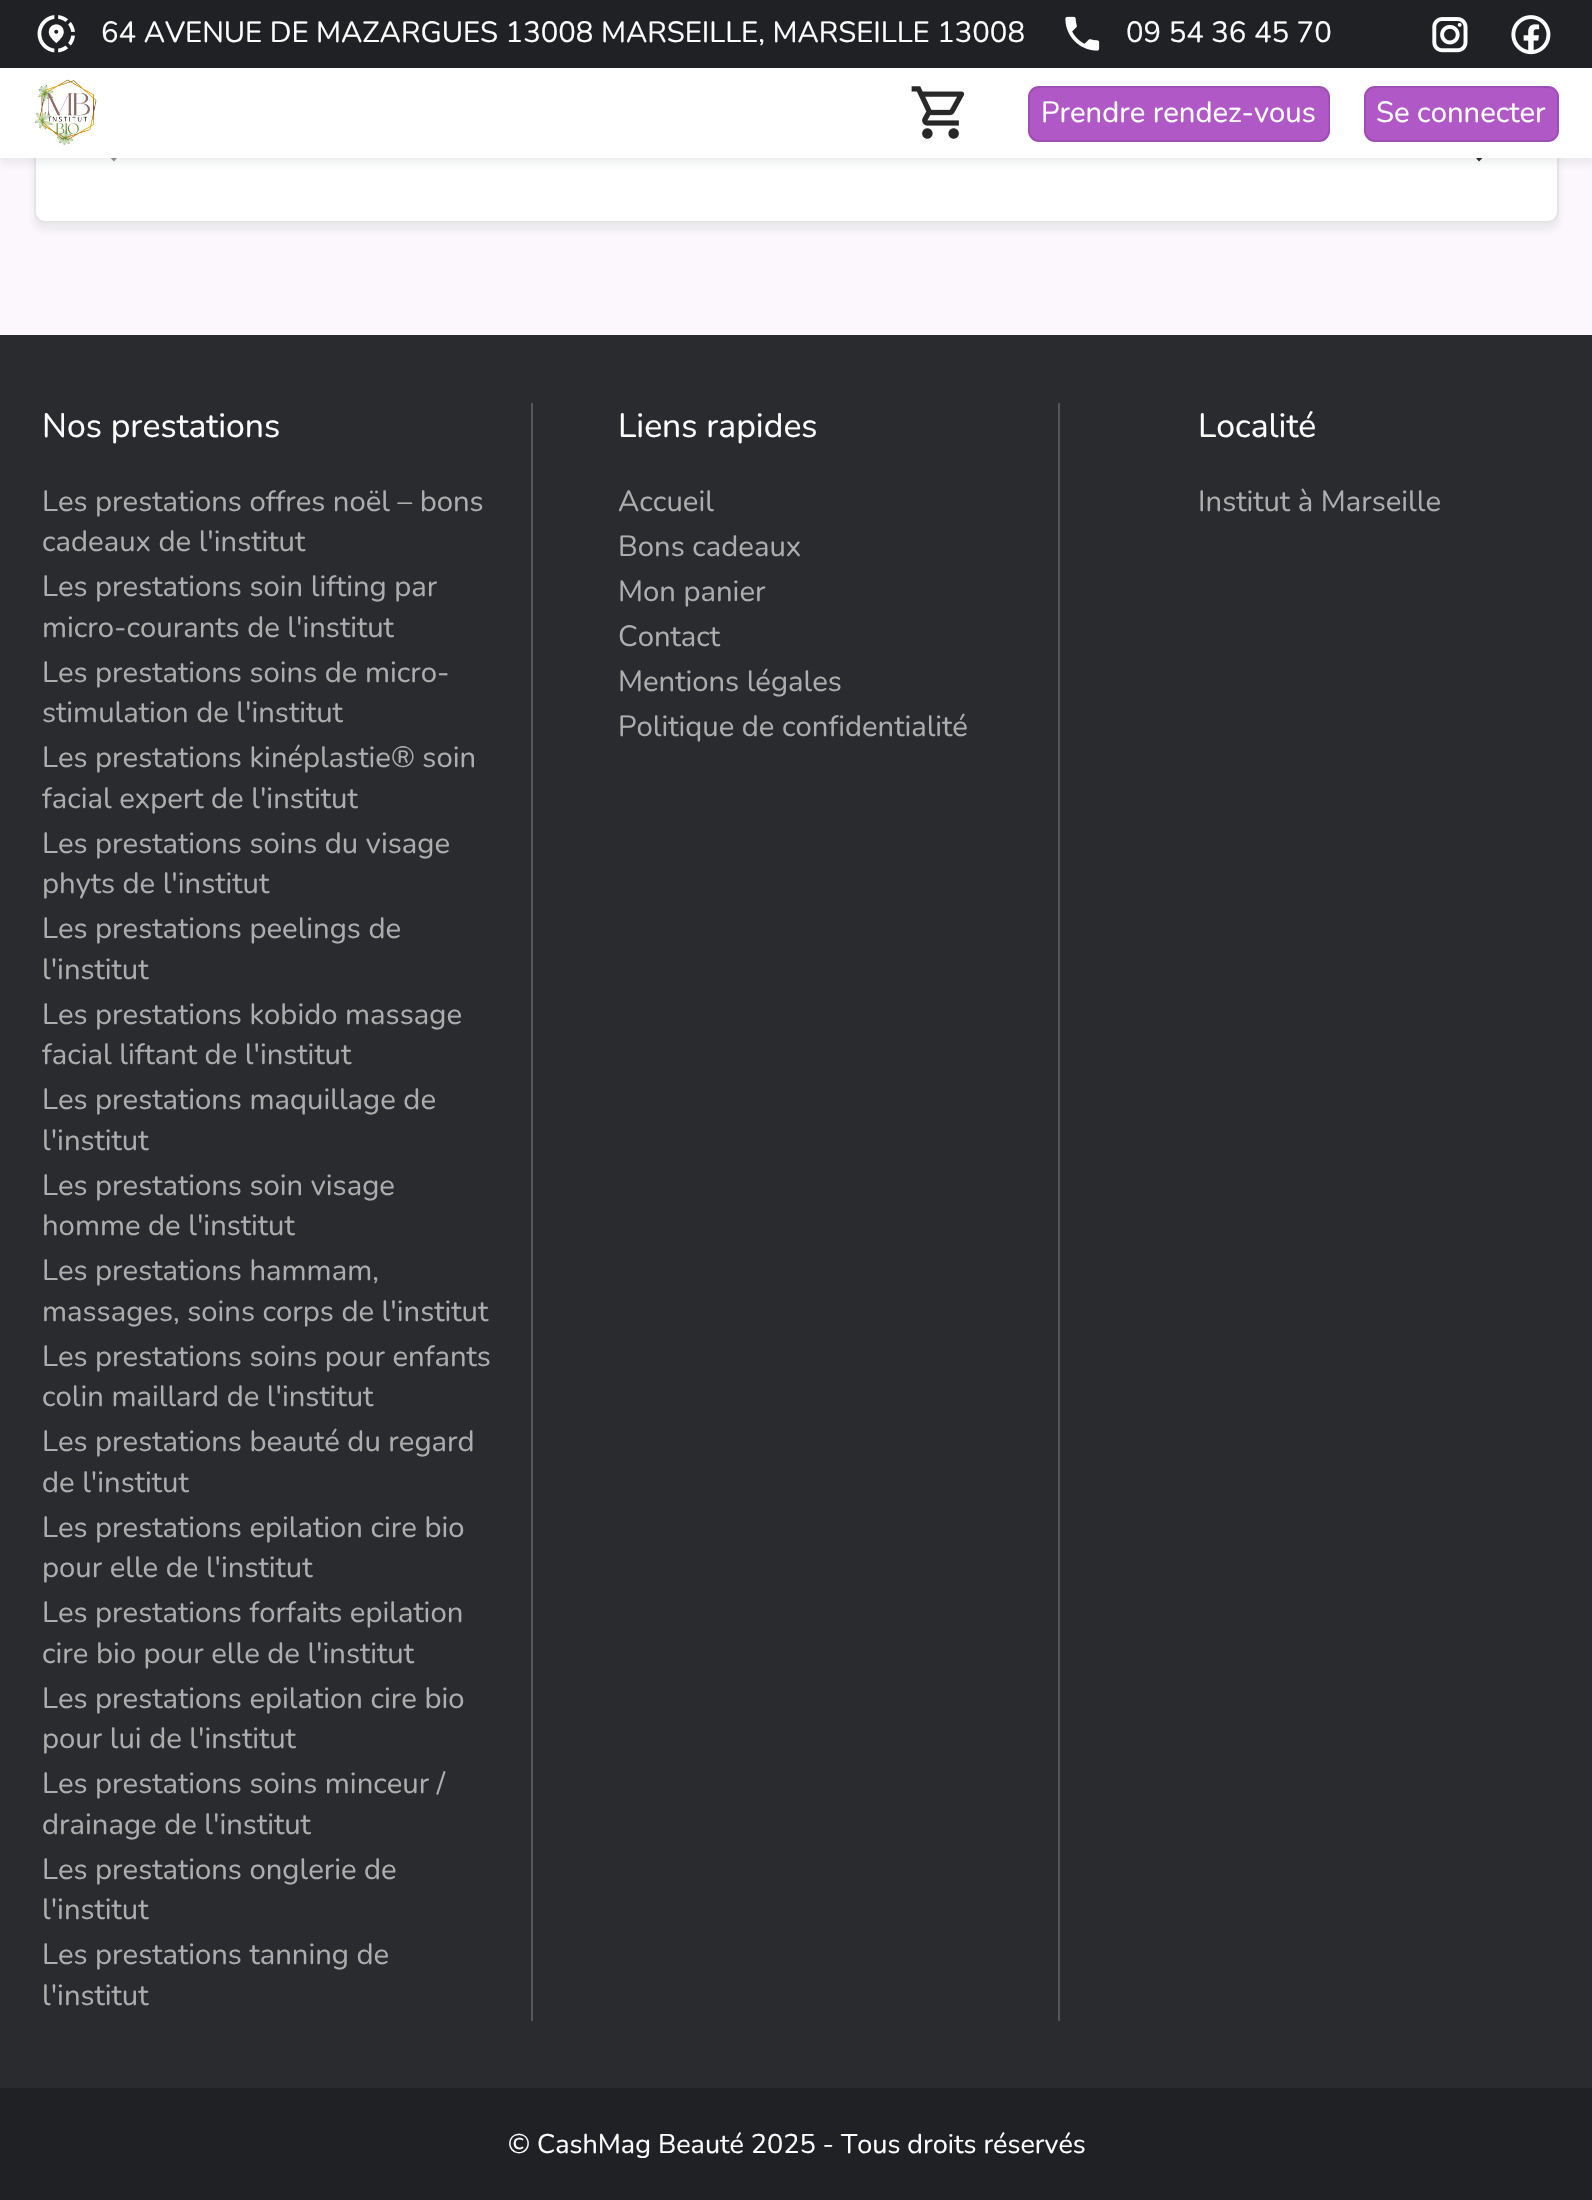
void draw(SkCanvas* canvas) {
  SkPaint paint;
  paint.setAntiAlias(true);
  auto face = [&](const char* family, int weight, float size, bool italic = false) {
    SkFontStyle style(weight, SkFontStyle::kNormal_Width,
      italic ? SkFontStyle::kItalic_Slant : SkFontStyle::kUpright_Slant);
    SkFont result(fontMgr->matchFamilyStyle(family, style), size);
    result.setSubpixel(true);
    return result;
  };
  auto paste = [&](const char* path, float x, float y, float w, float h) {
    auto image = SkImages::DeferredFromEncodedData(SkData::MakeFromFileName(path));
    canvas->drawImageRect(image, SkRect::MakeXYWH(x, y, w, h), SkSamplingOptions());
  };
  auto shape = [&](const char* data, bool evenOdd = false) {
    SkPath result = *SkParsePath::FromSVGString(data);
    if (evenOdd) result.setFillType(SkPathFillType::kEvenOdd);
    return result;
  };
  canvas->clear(0xfffbf7fc);
  paint.setColor(0x14393f48);
  paint.setMaskFilter(SkMaskFilter::MakeBlur(kNormal_SkBlurStyle, 3.5f));
  canvas->drawRoundRect(SkRect::MakeXYWH(34, -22, 1525, 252), 11, 11, paint);
  paint.setMaskFilter(nullptr);
  paint.setColor(0xffffffff);
  canvas->drawRoundRect(SkRect::MakeXYWH(34, -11, 1525, 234), 11, 11, paint);
  paint.setStroke(true);
  paint.setStrokeWidth(2);
  paint.setColor(0x1a000000);
  canvas->drawRoundRect(SkRect::MakeXYWH(35, -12, 1523, 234), 10, 10, paint);
  paint.setStroke(false);
  paint.setColor(0xff949494);
  canvas->drawPath(shape("M117 136.5L114 133.5L100 147.5L114 161.5L117 158L106.5 147.5Z"), paint);
  paint.setColor(0xff292828);
  canvas->drawPath(shape("M1479 133.5L1476 136.5L1486.5 147.5L1476 158L1479 161.5L1493 147.5Z"), paint);
  paint.setColor(0x14393f48);
  paint.setMaskFilter(SkMaskFilter::MakeBlur(kNormal_SkBlurStyle, 3.5f));
  canvas->drawRect(SkRect::MakeXYWH(0, 7, 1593, 157), paint);
  paint.setMaskFilter(nullptr);
  paint.setColor(0xffffffff);
  canvas->drawRect(SkRect::MakeXYWH(0, 68, 1592, 90), paint);
  paint.setColor(0xff202124);
  canvas->drawRect(SkRect::MakeXYWH(0, 0, 1592, 68), paint);
  paste("img/1.png", 37, 15, 38, 38);
  paste("img/2.png", 1065, 16, 35, 35);
  paste("img/3.png", 1432, 17, 36, 36);
  paste("img/4.png", 1511, 15, 40, 40);
  paste("img/5.png", 35, 79, 62, 66);
  paste("img/6.png", 911, 86, 54, 53);
  paint.setColor(0xffb158c7);
  canvas->drawRoundRect(SkRect::MakeXYWH(1028, 86, 302, 56), 11, 11, paint);
  paint.setStroke(true);
  paint.setColor(0x1a000000);
  canvas->drawRoundRect(SkRect::MakeXYWH(1029, 87, 300, 54), 10, 10, paint);
  paint.setStroke(false);
  paint.setColor(0xffb158c7);
  canvas->drawRoundRect(SkRect::MakeXYWH(1364, 86, 195, 56), 11, 11, paint);
  paint.setStroke(true);
  paint.setColor(0x1a000000);
  canvas->drawRoundRect(SkRect::MakeXYWH(1365, 87, 193, 54), 10, 10, paint);
  paint.setStroke(false);
  {
    const struct { float x, y, w, h; SkColor color; } items[] = {
      {0, 335, 1592, 1753, 0xff2a2b2f},
      {531, 403, 2, 1618, 0xff565656},
      {1058, 403, 2, 1618, 0xff565656},
      {0, 2088, 1592, 112, 0xff202124},
    };
    for (auto [x, y, w, h, color] : items) {
      paint.setColor(color);
      canvas->drawRect(SkRect::MakeXYWH(x, y, w, h), paint);
    }
  }
  auto f0 = face("Nunito", 400, 29.25f);
  paint.setColor(0xffffffff);
  {
    const struct { const char* s; float x, y; } items[] = {
      {"64 AVENUE DE MAZARGUES 13008 MARSEILLE, MARSEILLE 13008", 101, 42},
      {"09 54 36 45 70", 1126, 42},
      {"Prendre rendez-vous", 1041, 122},
      {"Se connecter", 1376, 122},
    };
    for (auto [s, x, y] : items) {
      canvas->drawString(s, x, y, f0, paint);
    }
  }
  auto f1 = face("Nunito", 400, 33.75f);
  canvas->drawString("Nos prestations", 42, 437, f1, paint);
  paint.setColor(0xffadadad);
  {
    const struct { const char* s; float x, y; } items[] = {
      {"Les prestations offres noël – bons", 42, 511},
      {"cadeaux de l'institut", 42, 551},
      {"Les prestations soin lifting par", 42, 596},
      {"micro-courants de l'institut", 42, 637},
      {"Les prestations soins de micro-", 42, 682},
      {"stimulation de l'institut", 42, 722},
      {"Les prestations kinéplastie® soin", 42, 767},
      {"facial expert de l'institut", 42, 808},
      {"Les prestations soins du visage", 42, 853},
      {"phyts de l'institut", 42, 893},
      {"Les prestations peelings de", 42, 938},
      {"l'institut", 42, 979},
      {"Les prestations kobido massage", 42, 1024},
      {"facial liftant de l'institut", 42, 1064},
      {"Les prestations maquillage de", 42, 1109},
      {"l'institut", 42, 1150},
      {"Les prestations soin visage", 42, 1195},
      {"homme de l'institut", 42, 1235},
      {"Les prestations hammam,", 42, 1280},
      {"massages, soins corps de l'institut", 42, 1321},
      {"Les prestations soins pour enfants", 42, 1366},
      {"colin maillard de l'institut", 42, 1406},
      {"Les prestations beauté du regard", 42, 1451},
      {"de l'institut", 42, 1492},
      {"Les prestations epilation cire bio", 42, 1537},
      {"pour elle de l'institut", 42, 1577},
      {"Les prestations forfaits epilation", 42, 1622},
      {"cire bio pour elle de l'institut", 42, 1663},
      {"Les prestations epilation cire bio", 42, 1708},
      {"pour lui de l'institut", 42, 1748},
      {"Les prestations soins minceur /", 42, 1793},
      {"drainage de l'institut", 42, 1834},
      {"Les prestations onglerie de", 42, 1879},
      {"l'institut", 42, 1919},
      {"Les prestations tanning de", 42, 1964},
      {"l'institut", 42, 2005},
    };
    for (auto [s, x, y] : items) {
      canvas->drawString(s, x, y, f0, paint);
    }
  }
  paint.setColor(0xffffffff);
  canvas->drawString("Liens rapides", 618, 437, f1, paint);
  paint.setColor(0xffadadad);
  {
    const struct { const char* s; float x, y; } items[] = {
      {"Accueil", 618, 511},
      {"Bons cadeaux", 618, 556},
      {"Mon panier", 618, 601},
      {"Contact", 618, 646},
      {"Mentions légales", 618, 691},
      {"Politique de confidentialité", 618, 736},
    };
    for (auto [s, x, y] : items) {
      canvas->drawString(s, x, y, f0, paint);
    }
  }
  paint.setColor(0xffffffff);
  canvas->drawString("Localité", 1198, 437, f1, paint);
  paint.setColor(0xffadadad);
  canvas->drawString("Institut à Marseille", 1198, 511, f0, paint);
  auto f2 = face("Nunito", 400, 27);
  paint.setColor(0xffffffff);
  canvas->drawString("© CashMag Beauté 2025 - Tous droits réservés", 508, 2153, f2, paint);
}
